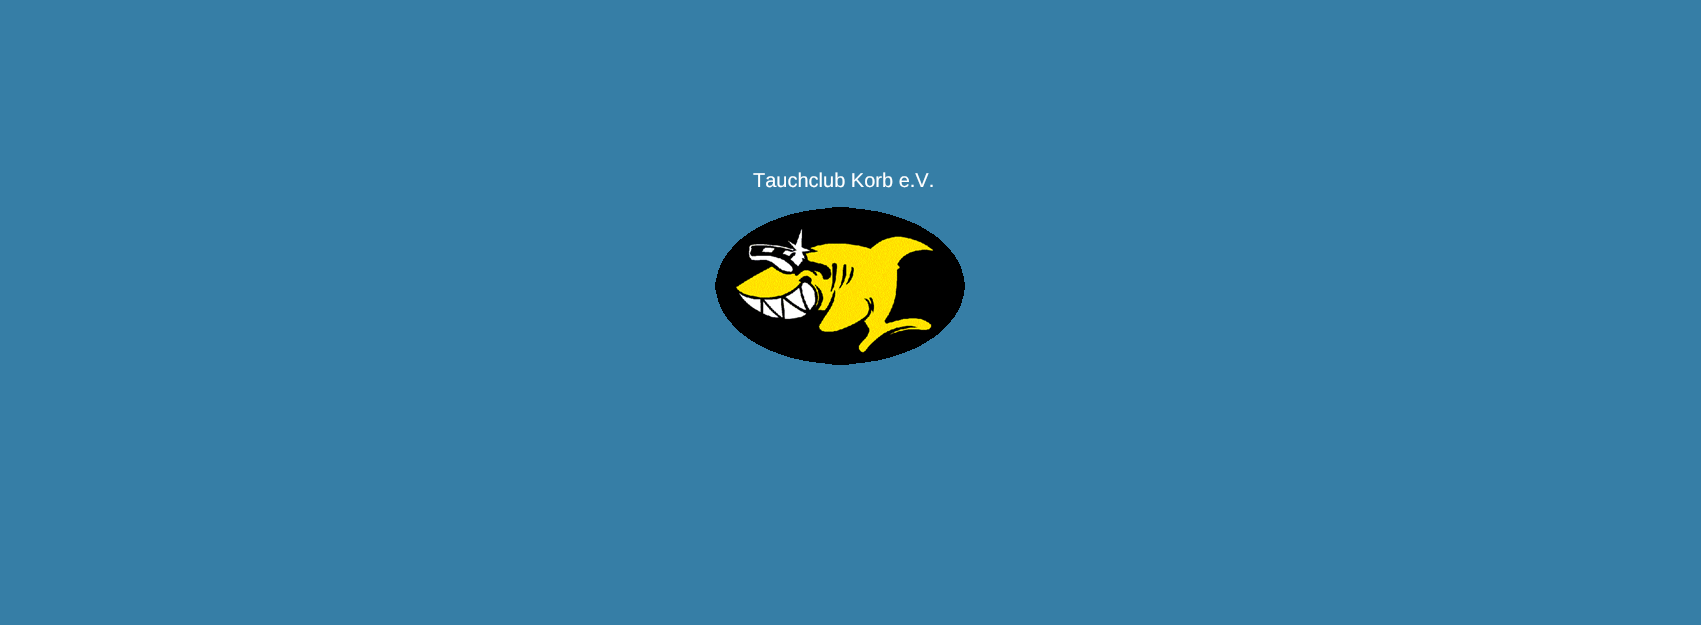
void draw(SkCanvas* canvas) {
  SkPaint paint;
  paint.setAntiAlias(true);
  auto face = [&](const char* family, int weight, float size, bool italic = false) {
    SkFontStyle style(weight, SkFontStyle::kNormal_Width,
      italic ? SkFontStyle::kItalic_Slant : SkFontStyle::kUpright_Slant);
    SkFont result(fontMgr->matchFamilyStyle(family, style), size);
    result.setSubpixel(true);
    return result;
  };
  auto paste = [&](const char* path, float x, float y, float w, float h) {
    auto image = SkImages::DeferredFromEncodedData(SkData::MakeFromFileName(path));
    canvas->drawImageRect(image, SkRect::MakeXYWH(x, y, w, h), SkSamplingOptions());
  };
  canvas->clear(0xff367ea6);
  paste("img/1.png", 715, 207, 250, 158);
  auto f0 = face("Liberation Sans", 400, 20);
  paint.setColor(0xffffffff);
  canvas->drawString("Tauchclub Korb e.V.", 753, 187, f0, paint);
}
